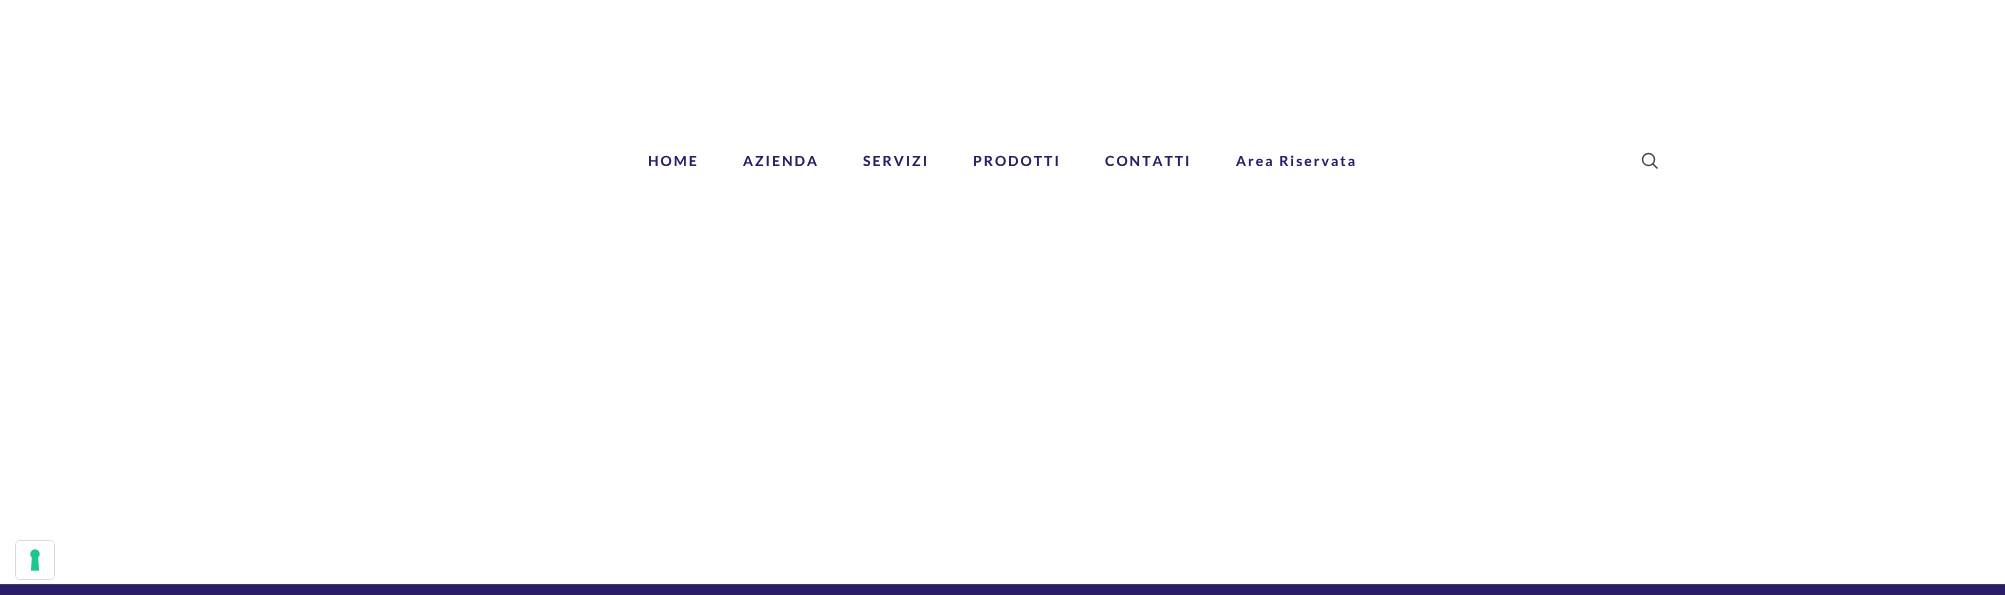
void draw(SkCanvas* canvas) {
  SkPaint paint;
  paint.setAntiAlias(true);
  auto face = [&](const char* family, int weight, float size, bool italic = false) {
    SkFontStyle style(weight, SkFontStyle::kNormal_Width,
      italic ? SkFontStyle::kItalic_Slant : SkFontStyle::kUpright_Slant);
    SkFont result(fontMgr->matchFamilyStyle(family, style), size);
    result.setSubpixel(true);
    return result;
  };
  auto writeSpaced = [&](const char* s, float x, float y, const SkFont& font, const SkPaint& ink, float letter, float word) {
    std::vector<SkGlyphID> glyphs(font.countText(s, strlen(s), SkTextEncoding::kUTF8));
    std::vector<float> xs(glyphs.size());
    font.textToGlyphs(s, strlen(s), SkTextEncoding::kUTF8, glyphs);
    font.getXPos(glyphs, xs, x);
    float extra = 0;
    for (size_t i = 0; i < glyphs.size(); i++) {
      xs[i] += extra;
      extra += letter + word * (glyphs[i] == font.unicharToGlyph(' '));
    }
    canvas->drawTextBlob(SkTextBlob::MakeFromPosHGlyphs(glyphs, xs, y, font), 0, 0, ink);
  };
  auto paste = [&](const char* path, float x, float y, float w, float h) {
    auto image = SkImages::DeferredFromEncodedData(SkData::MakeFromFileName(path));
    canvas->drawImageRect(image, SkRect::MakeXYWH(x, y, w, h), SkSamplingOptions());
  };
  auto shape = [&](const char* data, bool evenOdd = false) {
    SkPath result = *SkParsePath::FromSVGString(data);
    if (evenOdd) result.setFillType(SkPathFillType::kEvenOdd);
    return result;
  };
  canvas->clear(0xffffffff);
  paint.setStroke(true);
  paint.setStrokeWidth(1.5f);
  paint.setColor(0xff444444);
  canvas->drawCircle(1648.5f, 159.5f, 6, paint);
  canvas->drawPath(shape("M1652.5 163.5L1657.5 168.5"), paint);
  paint.setStroke(false);
  paint.setColor(0xff2b1d67);
  canvas->drawRect(SkRect::MakeXYWH(0, 585, 2005, 10), paint);
  paint.setColor(0xff403476);
  canvas->drawRect(SkRect::MakeXYWH(0, 584, 2005, 1), paint);
  paint.setStroke(true);
  paint.setStrokeWidth(1);
  paint.setColor(0xffd9d9d9);
  canvas->drawRoundRect(SkRect::MakeXYWH(15.5f, 540.5f, 39, 39), 4.5f, 4.5f, paint);
  paint.setStroke(false);
  paint.setColor(0xffffffff);
  canvas->drawRoundRect(SkRect::MakeXYWH(16, 541, 38, 38), 4, 4, paint);
  paste("img/1.png", 30, 549, 10, 22);
  auto f0 = face("Lato", 700, 14);
  paint.setColor(0xff2b1d67);
  {
    const struct { const char* s; float x, y; } items[] = {
      {"HOME", 648, 166},
      {"AZIENDA", 743, 166},
      {"SERVIZI", 863, 166},
      {"PRODOTTI", 973, 166},
      {"CONTATTI", 1105, 166},
      {"Area Riservata", 1236, 166},
    };
    for (auto [s, x, y] : items) {
      writeSpaced(s, x, y, f0, paint, 2, 0);
    }
  }
}
